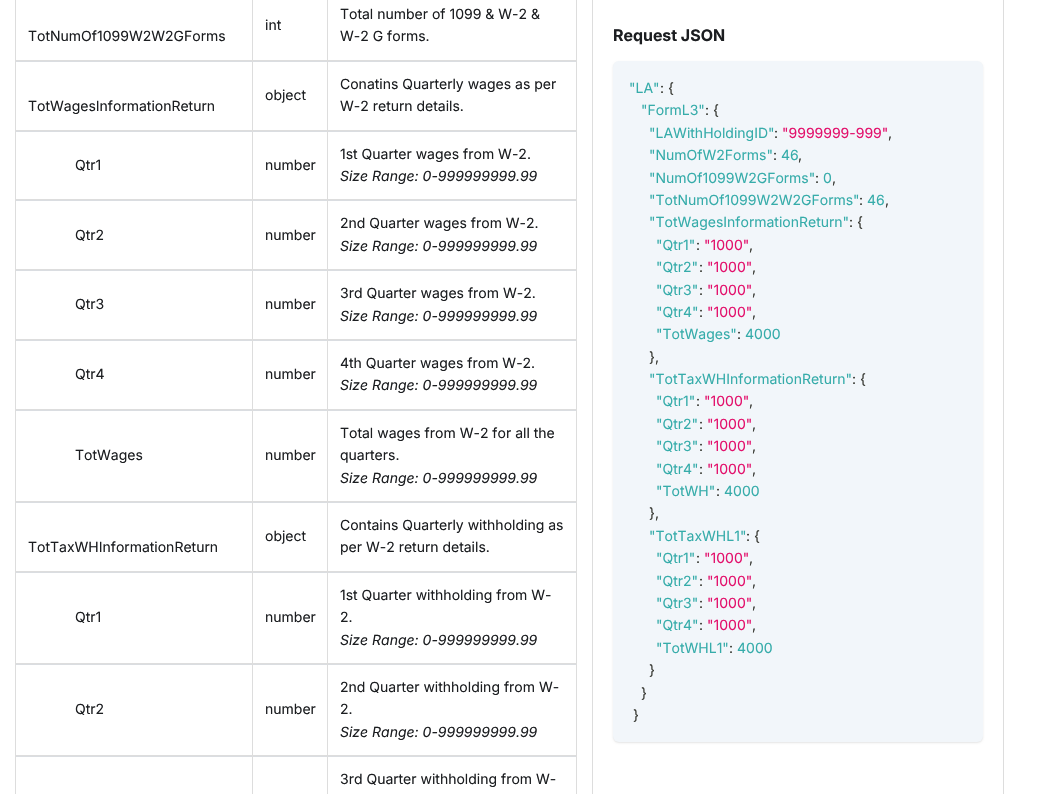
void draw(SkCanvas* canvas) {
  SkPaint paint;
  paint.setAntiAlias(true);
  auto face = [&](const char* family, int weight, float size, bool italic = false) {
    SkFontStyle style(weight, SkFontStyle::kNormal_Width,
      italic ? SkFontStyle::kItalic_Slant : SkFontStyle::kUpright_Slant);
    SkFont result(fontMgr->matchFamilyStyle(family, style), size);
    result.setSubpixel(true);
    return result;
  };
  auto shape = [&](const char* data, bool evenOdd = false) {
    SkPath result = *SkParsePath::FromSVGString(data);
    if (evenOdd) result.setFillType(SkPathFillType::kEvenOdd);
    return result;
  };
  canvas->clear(0xffffffff);
  {
    const struct { float x, y, w, h; SkColor color; } items[] = {
      {327, 0, 1, 61, 0xffdddddd},
      {253, 60, 75, 1, 0xffdddddd},
      {576, 0, 1, 61, 0xffdddddd},
      {328, 60, 249, 1, 0xffdddddd},
      {252, 0, 1, 61, 0xffdddddd},
      {15, 60, 238, 1, 0xffdddddd},
      {15, 0, 1, 61, 0xffdddddd},
      {15, 61, 562, 1, 0xffdadde1},
      {327, 61, 1, 70, 0xffdddddd},
      {253, 130, 75, 1, 0xffdddddd},
      {576, 61, 1, 70, 0xffdddddd},
      {328, 130, 249, 1, 0xffdddddd},
      {252, 61, 1, 70, 0xffdddddd},
      {15, 130, 238, 1, 0xffdddddd},
      {15, 61, 1, 70, 0xffdddddd},
      {15, 131, 562, 1, 0xffdadde1},
      {252, 131, 1, 69, 0xffdddddd},
      {15, 199, 238, 1, 0xffdddddd},
      {15, 131, 1, 69, 0xffdddddd},
      {327, 131, 1, 69, 0xffdddddd},
      {253, 199, 75, 1, 0xffdddddd},
      {576, 131, 1, 69, 0xffdddddd},
      {328, 199, 249, 1, 0xffdddddd},
      {15, 200, 562, 1, 0xffdadde1},
      {252, 200, 1, 70, 0xffdddddd},
      {15, 269, 238, 1, 0xffdddddd},
      {15, 200, 1, 70, 0xffdddddd},
      {327, 200, 1, 70, 0xffdddddd},
      {253, 269, 75, 1, 0xffdddddd},
      {576, 200, 1, 70, 0xffdddddd},
      {328, 269, 249, 1, 0xffdddddd},
      {15, 270, 562, 1, 0xffdadde1},
      {252, 270, 1, 70, 0xffdddddd},
      {15, 339, 238, 1, 0xffdddddd},
      {15, 270, 1, 70, 0xffdddddd},
      {327, 270, 1, 70, 0xffdddddd},
      {253, 339, 75, 1, 0xffdddddd},
      {576, 270, 1, 70, 0xffdddddd},
      {328, 339, 249, 1, 0xffdddddd},
      {15, 340, 562, 1, 0xffdadde1},
      {252, 340, 1, 70, 0xffdddddd},
      {15, 409, 238, 1, 0xffdddddd},
      {15, 340, 1, 70, 0xffdddddd},
      {327, 340, 1, 70, 0xffdddddd},
      {253, 409, 75, 1, 0xffdddddd},
      {576, 340, 1, 70, 0xffdddddd},
      {328, 409, 249, 1, 0xffdddddd},
      {15, 410, 562, 1, 0xffdadde1},
      {252, 410, 1, 92, 0xffdddddd},
      {15, 501, 238, 1, 0xffdddddd},
      {15, 410, 1, 92, 0xffdddddd},
      {327, 410, 1, 92, 0xffdddddd},
      {253, 501, 75, 1, 0xffdddddd},
      {576, 410, 1, 92, 0xffdddddd},
      {328, 501, 249, 1, 0xffdddddd},
      {15, 502, 562, 1, 0xffdadde1},
      {327, 502, 1, 70, 0xffdddddd},
      {253, 571, 75, 1, 0xffdddddd},
      {576, 502, 1, 70, 0xffdddddd},
      {328, 571, 249, 1, 0xffdddddd},
      {252, 502, 1, 70, 0xffdddddd},
      {15, 571, 238, 1, 0xffdddddd},
      {15, 502, 1, 70, 0xffdddddd},
      {15, 572, 562, 1, 0xffdadde1},
      {252, 572, 1, 92, 0xffdddddd},
      {15, 663, 238, 1, 0xffdddddd},
      {15, 572, 1, 92, 0xffdddddd},
      {327, 572, 1, 92, 0xffdddddd},
      {253, 663, 75, 1, 0xffdddddd},
      {576, 572, 1, 92, 0xffdddddd},
      {328, 663, 249, 1, 0xffdddddd},
      {15, 664, 562, 1, 0xffdadde1},
      {252, 664, 1, 92, 0xffdddddd},
      {15, 755, 238, 1, 0xffdddddd},
      {15, 664, 1, 92, 0xffdddddd},
      {327, 664, 1, 92, 0xffdddddd},
      {253, 755, 75, 1, 0xffdddddd},
      {576, 664, 1, 92, 0xffdddddd},
      {328, 755, 249, 1, 0xffdddddd},
      {15, 756, 562, 1, 0xffdadde1},
      {252, 756, 1, 38, 0xffdddddd},
      {15, 756, 1, 38, 0xffdddddd},
      {327, 756, 1, 38, 0xffdddddd},
      {576, 756, 1, 38, 0xffdddddd},
    };
    for (auto [x, y, w, h, color] : items) {
      paint.setColor(color);
      canvas->drawRect(SkRect::MakeXYWH(x, y, w, h), paint);
    }
  }
  canvas->drawPath(shape("M592-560H1004V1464C1004 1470 1000 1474 994 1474H602C596 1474 592 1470 592 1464ZM593-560H1003V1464C1003 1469 999 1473 994 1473H602C597 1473 593 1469 593 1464Z", true), paint);
  paint.setColor(0x1a000000);
  paint.setMaskFilter(SkMaskFilter::MakeBlur(kNormal_SkBlurStyle, 1));
  canvas->drawRoundRect(SkRect::MakeXYWH(613, 62, 370, 681), 6, 6, paint);
  paint.setMaskFilter(nullptr);
  paint.setColor(0xfff2f6fa);
  canvas->drawRoundRect(SkRect::MakeXYWH(613, 61, 370, 681), 6, 6, paint);
  auto f0 = face("Inter", 400, 14);
  paint.setColor(0xff1c1e21);
  {
    const struct { const char* s; float x, y; } items[] = {
      {"int", 265, 30},
      {"Total number of 1099 & W-2 &", 340, 19},
      {"W-2 G forms.", 340, 41},
      {"TotNumOf1099W2W2GForms", 28, 41},
      {"object", 265, 100},
      {"Conatins Quarterly wages as per", 340, 89},
      {"W-2 return details.", 340, 111},
      {"TotWagesInformationReturn", 28, 111},
      {"Qtr1", 75, 170},
      {"number", 265, 170},
      {"1st Quarter wages from W-2.", 340, 159},
    };
    for (auto [s, x, y] : items) {
      canvas->drawString(s, x, y, f0, paint);
    }
  }
  auto f1 = face("Inter", 400, 14, true);
  canvas->drawString("Size Range: 0-999999999.99", 340, 181, f1, paint);
  {
    const struct { const char* s; float x, y; } items[] = {
      {"Qtr2", 75, 240},
      {"number", 265, 240},
      {"2nd Quarter wages from W-2.", 340, 228},
    };
    for (auto [s, x, y] : items) {
      canvas->drawString(s, x, y, f0, paint);
    }
  }
  canvas->drawString("Size Range: 0-999999999.99", 340, 251, f1, paint);
  {
    const struct { const char* s; float x, y; } items[] = {
      {"Qtr3", 75, 309},
      {"number", 265, 309},
      {"3rd Quarter wages from W-2.", 340, 298},
    };
    for (auto [s, x, y] : items) {
      canvas->drawString(s, x, y, f0, paint);
    }
  }
  canvas->drawString("Size Range: 0-999999999.99", 340, 321, f1, paint);
  {
    const struct { const char* s; float x, y; } items[] = {
      {"Qtr4", 75, 379},
      {"number", 265, 379},
      {"4th Quarter wages from W-2.", 340, 368},
    };
    for (auto [s, x, y] : items) {
      canvas->drawString(s, x, y, f0, paint);
    }
  }
  canvas->drawString("Size Range: 0-999999999.99", 340, 390, f1, paint);
  {
    const struct { const char* s; float x, y; } items[] = {
      {"TotWages", 75, 460},
      {"number", 265, 460},
      {"Total wages from W-2 for all the", 340, 438},
      {"quarters.", 340, 460},
    };
    for (auto [s, x, y] : items) {
      canvas->drawString(s, x, y, f0, paint);
    }
  }
  canvas->drawString("Size Range: 0-999999999.99", 340, 483, f1, paint);
  {
    const struct { const char* s; float x, y; } items[] = {
      {"object", 265, 541},
      {"Contains Quarterly withholding as", 340, 530},
      {"per W-2 return details.", 340, 552},
      {"TotTaxWHInformationReturn", 28, 552},
      {"Qtr1", 75, 622},
      {"number", 265, 622},
      {"1st Quarter withholding from W-", 340, 600},
      {"2.", 340, 622},
    };
    for (auto [s, x, y] : items) {
      canvas->drawString(s, x, y, f0, paint);
    }
  }
  canvas->drawString("Size Range: 0-999999999.99", 340, 645, f1, paint);
  {
    const struct { const char* s; float x, y; } items[] = {
      {"Qtr2", 75, 714},
      {"number", 265, 714},
      {"2nd Quarter withholding from W-", 340, 692},
      {"2.", 340, 714},
    };
    for (auto [s, x, y] : items) {
      canvas->drawString(s, x, y, f0, paint);
    }
  }
  canvas->drawString("Size Range: 0-999999999.99", 340, 737, f1, paint);
  canvas->drawString("3rd Quarter withholding from W-", 340, 784, f0, paint);
  auto f2 = face("Inter", 700, 16);
  canvas->drawString("Request JSON", 613, 41, f2, paint);
  paint.setColor(0xff36acaa);
  canvas->drawString("\"LA\"", 629, 93, f0, paint);
  paint.setColor(0xff393a34);
  canvas->drawString(": {", 660, 93, f0, paint);
  paint.setColor(0xff36acaa);
  canvas->drawString("\"FormL3\"", 641, 115, f0, paint);
  paint.setColor(0xff393a34);
  canvas->drawString(": {", 705, 115, f0, paint);
  paint.setColor(0xff36acaa);
  canvas->drawString("\"LAWithHoldingID\"", 649, 138, f0, paint);
  paint.setColor(0xff393a34);
  canvas->drawString(":", 774, 138, f0, paint);
  paint.setColor(0xffe3116c);
  canvas->drawString("\"9999999-999\"", 782, 138, f0, paint);
  paint.setColor(0xff393a34);
  canvas->drawString(",", 888, 138, f0, paint);
  paint.setColor(0xff36acaa);
  canvas->drawString("\"NumOfW2Forms\"", 649, 160, f0, paint);
  paint.setColor(0xff393a34);
  canvas->drawString(":", 773, 160, f0, paint);
  paint.setColor(0xff36acaa);
  canvas->drawString("46", 781, 160, f0, paint);
  paint.setColor(0xff393a34);
  canvas->drawString(",", 798, 160, f0, paint);
  paint.setColor(0xff36acaa);
  canvas->drawString("\"NumOf1099W2GForms\"", 649, 183, f0, paint);
  paint.setColor(0xff393a34);
  canvas->drawString(":", 815, 183, f0, paint);
  paint.setColor(0xff36acaa);
  canvas->drawString("0", 823, 183, f0, paint);
  paint.setColor(0xff393a34);
  canvas->drawString(",", 832, 183, f0, paint);
  paint.setColor(0xff36acaa);
  canvas->drawString("\"TotNumOf1099W2W2GForms\"", 649, 205, f0, paint);
  paint.setColor(0xff393a34);
  canvas->drawString(":", 859, 205, f0, paint);
  paint.setColor(0xff36acaa);
  canvas->drawString("46", 867, 205, f0, paint);
  paint.setColor(0xff393a34);
  canvas->drawString(",", 885, 205, f0, paint);
  paint.setColor(0xff36acaa);
  canvas->drawString("\"TotWagesInformationReturn\"", 649, 227, f0, paint);
  paint.setColor(0xff393a34);
  canvas->drawString(": {", 849, 227, f0, paint);
  paint.setColor(0xff36acaa);
  canvas->drawString("\"Qtr1\"", 656, 250, f0, paint);
  paint.setColor(0xff393a34);
  canvas->drawString(":", 696, 250, f0, paint);
  paint.setColor(0xffe3116c);
  canvas->drawString("\"1000\"", 704, 250, f0, paint);
  paint.setColor(0xff393a34);
  canvas->drawString(",", 749, 250, f0, paint);
  paint.setColor(0xff36acaa);
  canvas->drawString("\"Qtr2\"", 656, 272, f0, paint);
  paint.setColor(0xff393a34);
  canvas->drawString(":", 699, 272, f0, paint);
  paint.setColor(0xffe3116c);
  canvas->drawString("\"1000\"", 707, 272, f0, paint);
  paint.setColor(0xff393a34);
  canvas->drawString(",", 752, 272, f0, paint);
  paint.setColor(0xff36acaa);
  canvas->drawString("\"Qtr3\"", 656, 295, f0, paint);
  paint.setColor(0xff393a34);
  canvas->drawString(":", 699, 295, f0, paint);
  paint.setColor(0xffe3116c);
  canvas->drawString("\"1000\"", 707, 295, f0, paint);
  paint.setColor(0xff393a34);
  canvas->drawString(",", 752, 295, f0, paint);
  paint.setColor(0xff36acaa);
  canvas->drawString("\"Qtr4\"", 656, 317, f0, paint);
  paint.setColor(0xff393a34);
  canvas->drawString(":", 699, 317, f0, paint);
  paint.setColor(0xffe3116c);
  canvas->drawString("\"1000\"", 707, 317, f0, paint);
  paint.setColor(0xff393a34);
  canvas->drawString(",", 752, 317, f0, paint);
  paint.setColor(0xff36acaa);
  canvas->drawString("\"TotWages\"", 656, 339, f0, paint);
  paint.setColor(0xff393a34);
  canvas->drawString(":", 737, 339, f0, paint);
  paint.setColor(0xff36acaa);
  canvas->drawString("4000", 745, 339, f0, paint);
  paint.setColor(0xff393a34);
  canvas->drawString("},", 649, 362, f0, paint);
  paint.setColor(0xff36acaa);
  canvas->drawString("\"TotTaxWHInformationReturn\"", 649, 384, f0, paint);
  paint.setColor(0xff393a34);
  canvas->drawString(": {", 852, 384, f0, paint);
  paint.setColor(0xff36acaa);
  canvas->drawString("\"Qtr1\"", 656, 406, f0, paint);
  paint.setColor(0xff393a34);
  canvas->drawString(":", 696, 406, f0, paint);
  paint.setColor(0xffe3116c);
  canvas->drawString("\"1000\"", 704, 406, f0, paint);
  paint.setColor(0xff393a34);
  canvas->drawString(",", 749, 406, f0, paint);
  paint.setColor(0xff36acaa);
  canvas->drawString("\"Qtr2\"", 656, 429, f0, paint);
  paint.setColor(0xff393a34);
  canvas->drawString(":", 699, 429, f0, paint);
  paint.setColor(0xffe3116c);
  canvas->drawString("\"1000\"", 707, 429, f0, paint);
  paint.setColor(0xff393a34);
  canvas->drawString(",", 752, 429, f0, paint);
  paint.setColor(0xff36acaa);
  canvas->drawString("\"Qtr3\"", 656, 451, f0, paint);
  paint.setColor(0xff393a34);
  canvas->drawString(":", 699, 451, f0, paint);
  paint.setColor(0xffe3116c);
  canvas->drawString("\"1000\"", 707, 451, f0, paint);
  paint.setColor(0xff393a34);
  canvas->drawString(",", 752, 451, f0, paint);
  paint.setColor(0xff36acaa);
  canvas->drawString("\"Qtr4\"", 656, 474, f0, paint);
  paint.setColor(0xff393a34);
  canvas->drawString(":", 699, 474, f0, paint);
  paint.setColor(0xffe3116c);
  canvas->drawString("\"1000\"", 707, 474, f0, paint);
  paint.setColor(0xff393a34);
  canvas->drawString(",", 752, 474, f0, paint);
  paint.setColor(0xff36acaa);
  canvas->drawString("\"TotWH\"", 656, 496, f0, paint);
  paint.setColor(0xff393a34);
  canvas->drawString(":", 716, 496, f0, paint);
  paint.setColor(0xff36acaa);
  canvas->drawString("4000", 724, 496, f0, paint);
  paint.setColor(0xff393a34);
  canvas->drawString("},", 649, 518, f0, paint);
  paint.setColor(0xff36acaa);
  canvas->drawString("\"TotTaxWHL1\"", 649, 541, f0, paint);
  paint.setColor(0xff393a34);
  canvas->drawString(": {", 746, 541, f0, paint);
  paint.setColor(0xff36acaa);
  canvas->drawString("\"Qtr1\"", 656, 563, f0, paint);
  paint.setColor(0xff393a34);
  canvas->drawString(":", 696, 563, f0, paint);
  paint.setColor(0xffe3116c);
  canvas->drawString("\"1000\"", 704, 563, f0, paint);
  paint.setColor(0xff393a34);
  canvas->drawString(",", 749, 563, f0, paint);
  paint.setColor(0xff36acaa);
  canvas->drawString("\"Qtr2\"", 656, 586, f0, paint);
  paint.setColor(0xff393a34);
  canvas->drawString(":", 699, 586, f0, paint);
  paint.setColor(0xffe3116c);
  canvas->drawString("\"1000\"", 707, 586, f0, paint);
  paint.setColor(0xff393a34);
  canvas->drawString(",", 752, 586, f0, paint);
  paint.setColor(0xff36acaa);
  canvas->drawString("\"Qtr3\"", 656, 608, f0, paint);
  paint.setColor(0xff393a34);
  canvas->drawString(":", 699, 608, f0, paint);
  paint.setColor(0xffe3116c);
  canvas->drawString("\"1000\"", 707, 608, f0, paint);
  paint.setColor(0xff393a34);
  canvas->drawString(",", 752, 608, f0, paint);
  paint.setColor(0xff36acaa);
  canvas->drawString("\"Qtr4\"", 656, 630, f0, paint);
  paint.setColor(0xff393a34);
  canvas->drawString(":", 699, 630, f0, paint);
  paint.setColor(0xffe3116c);
  canvas->drawString("\"1000\"", 707, 630, f0, paint);
  paint.setColor(0xff393a34);
  canvas->drawString(",", 752, 630, f0, paint);
  paint.setColor(0xff36acaa);
  canvas->drawString("\"TotWHL1\"", 656, 653, f0, paint);
  paint.setColor(0xff393a34);
  canvas->drawString(":", 729, 653, f0, paint);
  paint.setColor(0xff36acaa);
  canvas->drawString("4000", 737, 653, f0, paint);
  paint.setColor(0xff393a34);
  {
    const struct { const char* s; float x, y; } items[] = {
      {"}", 649, 675},
      {"}", 641, 698},
      {"}", 633, 720},
    };
    for (auto [s, x, y] : items) {
      canvas->drawString(s, x, y, f0, paint);
    }
  }
}
